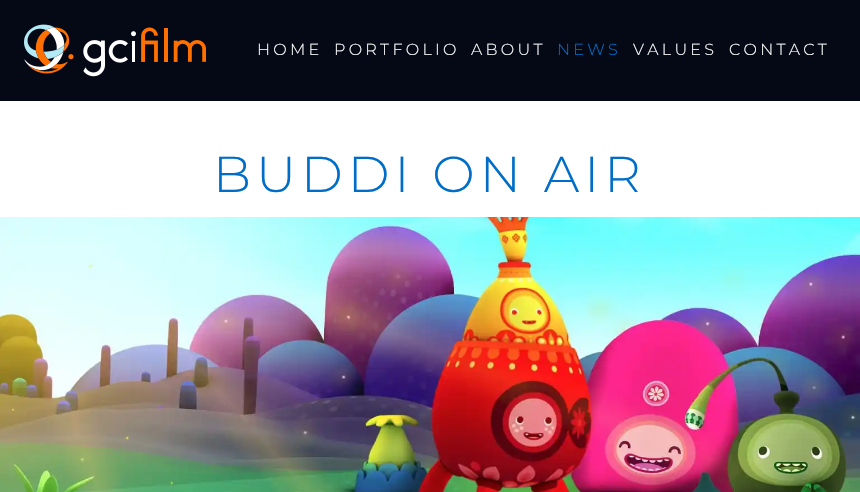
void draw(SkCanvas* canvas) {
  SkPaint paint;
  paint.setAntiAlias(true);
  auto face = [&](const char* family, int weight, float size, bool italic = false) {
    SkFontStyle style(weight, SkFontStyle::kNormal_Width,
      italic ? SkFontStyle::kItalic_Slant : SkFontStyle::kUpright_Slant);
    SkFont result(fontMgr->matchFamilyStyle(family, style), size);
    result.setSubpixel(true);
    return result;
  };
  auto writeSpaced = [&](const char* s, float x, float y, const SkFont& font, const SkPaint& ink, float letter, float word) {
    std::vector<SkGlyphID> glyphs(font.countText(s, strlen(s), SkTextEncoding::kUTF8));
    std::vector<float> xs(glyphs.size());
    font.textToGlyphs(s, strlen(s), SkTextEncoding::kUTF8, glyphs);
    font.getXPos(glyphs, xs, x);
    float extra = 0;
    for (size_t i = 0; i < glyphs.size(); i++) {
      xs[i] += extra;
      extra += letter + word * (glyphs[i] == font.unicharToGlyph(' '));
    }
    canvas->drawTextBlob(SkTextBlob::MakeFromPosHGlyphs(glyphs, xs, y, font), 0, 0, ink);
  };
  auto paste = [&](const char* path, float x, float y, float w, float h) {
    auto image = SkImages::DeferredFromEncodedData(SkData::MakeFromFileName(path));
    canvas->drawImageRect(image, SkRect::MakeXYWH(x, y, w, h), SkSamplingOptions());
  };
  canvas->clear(0xffffffff);
  paint.setColor(0xff050815);
  canvas->drawRect(SkRect::MakeXYWH(0, 0, 860, 101), paint);
  paste("img/1.png", 24, 24, 182, 53);
  paste("img/2.png", 0, 217, 860, 275);
  auto f0 = face("Montserrat", 300, 16);
  paint.setColor(0xffffffff);
  {
    const struct { const char* s; float x, y; } items[] = {
      {"HOME", 257, 55},
      {"PORTFOLIO", 334, 55},
      {"ABOUT", 471, 55},
    };
    for (auto [s, x, y] : items) {
      writeSpaced(s, x, y, f0, paint, 3.25f, 0);
    }
  }
  paint.setColor(0xff006ec8);
  writeSpaced("NEWS", 557, 55, f0, paint, 3.25f, 0);
  paint.setColor(0xffffffff);
  writeSpaced("VALUES", 633, 55, f0, paint, 3.25f, 0);
  writeSpaced("CONTACT", 729, 55, f0, paint, 3.25f, 0);
  auto f1 = face("Montserrat", 300, 50.5f);
  paint.setColor(0xff006ec8);
  writeSpaced("BUDDI ON AIR", 213, 192, f1, paint, 5, 0);
}
